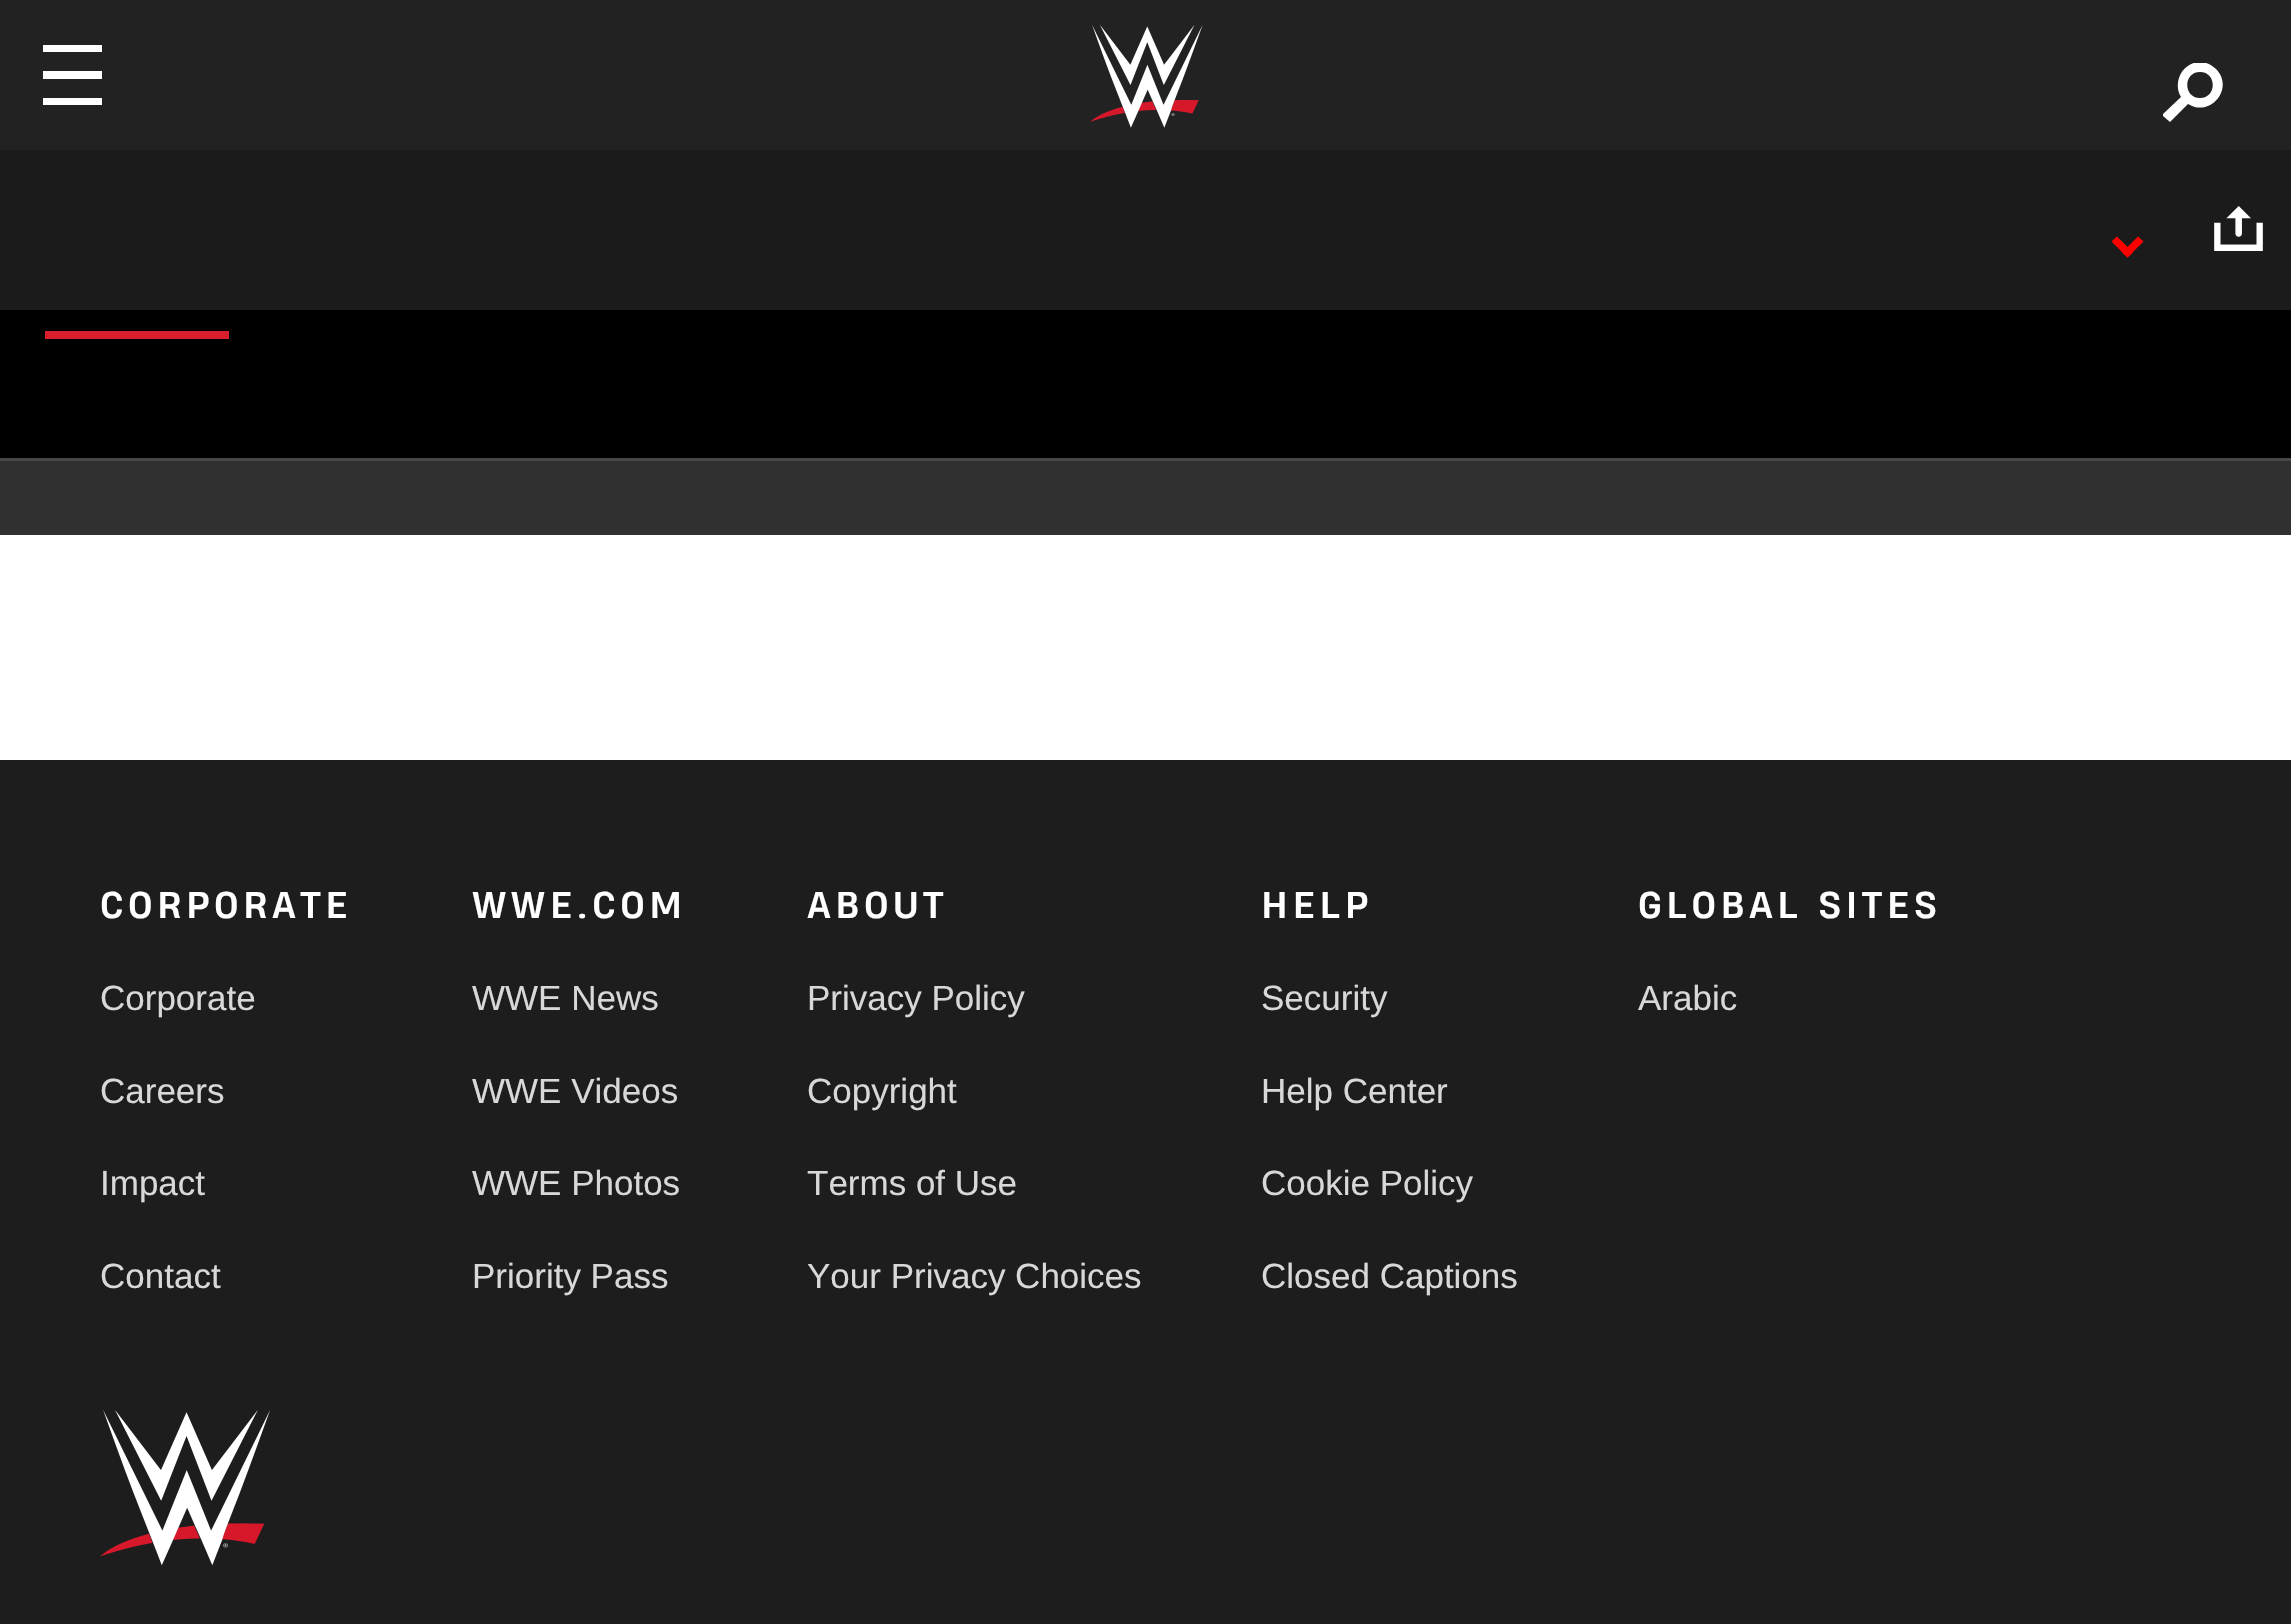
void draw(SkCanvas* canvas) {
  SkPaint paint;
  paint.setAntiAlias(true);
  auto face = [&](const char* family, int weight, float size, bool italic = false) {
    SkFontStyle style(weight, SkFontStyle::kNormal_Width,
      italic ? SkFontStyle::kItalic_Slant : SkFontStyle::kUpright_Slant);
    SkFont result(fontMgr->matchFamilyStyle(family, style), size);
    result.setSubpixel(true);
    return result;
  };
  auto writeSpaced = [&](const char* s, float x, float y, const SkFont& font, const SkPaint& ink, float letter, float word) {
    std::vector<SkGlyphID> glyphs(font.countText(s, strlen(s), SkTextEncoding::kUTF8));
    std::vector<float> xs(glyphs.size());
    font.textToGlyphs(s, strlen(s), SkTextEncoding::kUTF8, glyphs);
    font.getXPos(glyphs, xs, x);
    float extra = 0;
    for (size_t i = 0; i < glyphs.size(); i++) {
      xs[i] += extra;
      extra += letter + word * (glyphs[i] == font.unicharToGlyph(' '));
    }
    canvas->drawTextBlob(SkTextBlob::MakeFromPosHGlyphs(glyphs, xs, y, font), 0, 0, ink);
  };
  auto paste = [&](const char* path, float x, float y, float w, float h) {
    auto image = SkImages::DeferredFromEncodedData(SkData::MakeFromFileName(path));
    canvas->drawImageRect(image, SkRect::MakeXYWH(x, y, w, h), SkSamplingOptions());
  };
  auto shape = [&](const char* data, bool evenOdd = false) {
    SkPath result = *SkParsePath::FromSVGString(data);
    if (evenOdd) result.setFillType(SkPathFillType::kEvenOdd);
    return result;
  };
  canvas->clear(0xffffffff);
  paint.setColor(0xff222222);
  canvas->drawRect(SkRect::MakeXYWH(0, 0, 2291, 150), paint);
  canvas->save();
  canvas->clipRect(SkRect::MakeXYWH(43, 45, 60, 60));
  paint.setColor(0xffffffff);
  canvas->drawPath(shape("M46 52H42V45H102V52ZM46 79H42V71H102V79ZM46 105H42V98H102V105Z", true), paint);
  canvas->restore();
  paste("img/1.png", 1090, 25, 113, 103);
  canvas->save();
  canvas->clipRect(SkRect::MakeXYWH(2163, 63, 60, 60));
  canvas->drawPath(shape("M2200 62C2206 62 2212 65 2216 69C2235 88 2210 118 2188 104L2170 122L2162 115L2181 97C2172 82 2183 62 2200 62ZM2200 72C2183 72 2183 98 2200 98C2217 98 2217 72 2200 72Z", true), paint);
  canvas->restore();
  paint.setColor(0xff303030);
  canvas->drawRect(SkRect::MakeXYWH(0, 461, 2291, 74), paint);
  paint.setColor(0xff1b1b1b);
  canvas->drawRect(SkRect::MakeXYWH(0, 150, 2291, 160), paint);
  paint.setColor(0xffff0000);
  canvas->drawPath(shape("M2138 236.5L2143.5 241.5L2127.5 257.5L2122 252.5Z"), paint);
  canvas->drawPath(shape("M2117 236.5L2133 252.5L2127.5 257.5L2111.5 241.5Z"), paint);
  paste("img/2.png", 2214, 206, 49, 45);
  {
    const struct { float x, y, w, h; SkColor color; } items[] = {
      {0, 310, 2291, 148, 0xff000000},
      {0, 458, 2291, 3, 0xff474747},
      {45, 331, 184, 8, 0xffd91e2c},
      {0, 760, 2291, 864, 0xff1d1d1d},
    };
    for (auto [x, y, w, h, color] : items) {
      paint.setColor(color);
      canvas->drawRect(SkRect::MakeXYWH(x, y, w, h), paint);
    }
  }
  paste("img/3.png", 100, 1410, 170, 156);
  auto f0 = face("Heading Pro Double", 700, 35);
  paint.setColor(0xffffffff);
  writeSpaced("CORPORATE", 100, 918, f0, paint, 4.4f, 0);
  auto f1 = face("Liberation Sans", 400, 35);
  paint.setColor(0xffd8d8d8);
  {
    const struct { const char* s; float x, y; } items[] = {
      {"Corporate", 100, 1010},
      {"Careers", 100, 1103},
      {"Impact", 100, 1195},
      {"Contact", 100, 1288},
    };
    for (auto [s, x, y] : items) {
      canvas->drawString(s, x, y, f1, paint);
    }
  }
  paint.setColor(0xffffffff);
  writeSpaced("WWE.COM", 472, 918, f0, paint, 4.4f, 0);
  paint.setColor(0xffd8d8d8);
  {
    const struct { const char* s; float x, y; } items[] = {
      {"WWE News", 472, 1010},
      {"WWE Videos", 472, 1103},
      {"WWE Photos", 472, 1195},
      {"Priority Pass", 472, 1288},
    };
    for (auto [s, x, y] : items) {
      canvas->drawString(s, x, y, f1, paint);
    }
  }
  paint.setColor(0xffffffff);
  writeSpaced("ABOUT", 807, 918, f0, paint, 4.4f, 0);
  paint.setColor(0xffd8d8d8);
  {
    const struct { const char* s; float x, y; } items[] = {
      {"Privacy Policy", 807, 1010},
      {"Copyright", 807, 1103},
      {"Terms of Use", 807, 1195},
      {"Your Privacy Choices", 807, 1288},
    };
    for (auto [s, x, y] : items) {
      canvas->drawString(s, x, y, f1, paint);
    }
  }
  paint.setColor(0xffffffff);
  writeSpaced("HELP", 1261, 918, f0, paint, 4.4f, 0);
  paint.setColor(0xffd8d8d8);
  {
    const struct { const char* s; float x, y; } items[] = {
      {"Security", 1261, 1010},
      {"Help Center", 1261, 1103},
      {"Cookie Policy", 1261, 1195},
      {"Closed Captions", 1261, 1288},
    };
    for (auto [s, x, y] : items) {
      canvas->drawString(s, x, y, f1, paint);
    }
  }
  paint.setColor(0xffffffff);
  writeSpaced("GLOBAL SITES", 1638, 918, f0, paint, 4.4f, 0);
  paint.setColor(0xffd8d8d8);
  canvas->drawString("Arabic", 1638, 1010, f1, paint);
}
